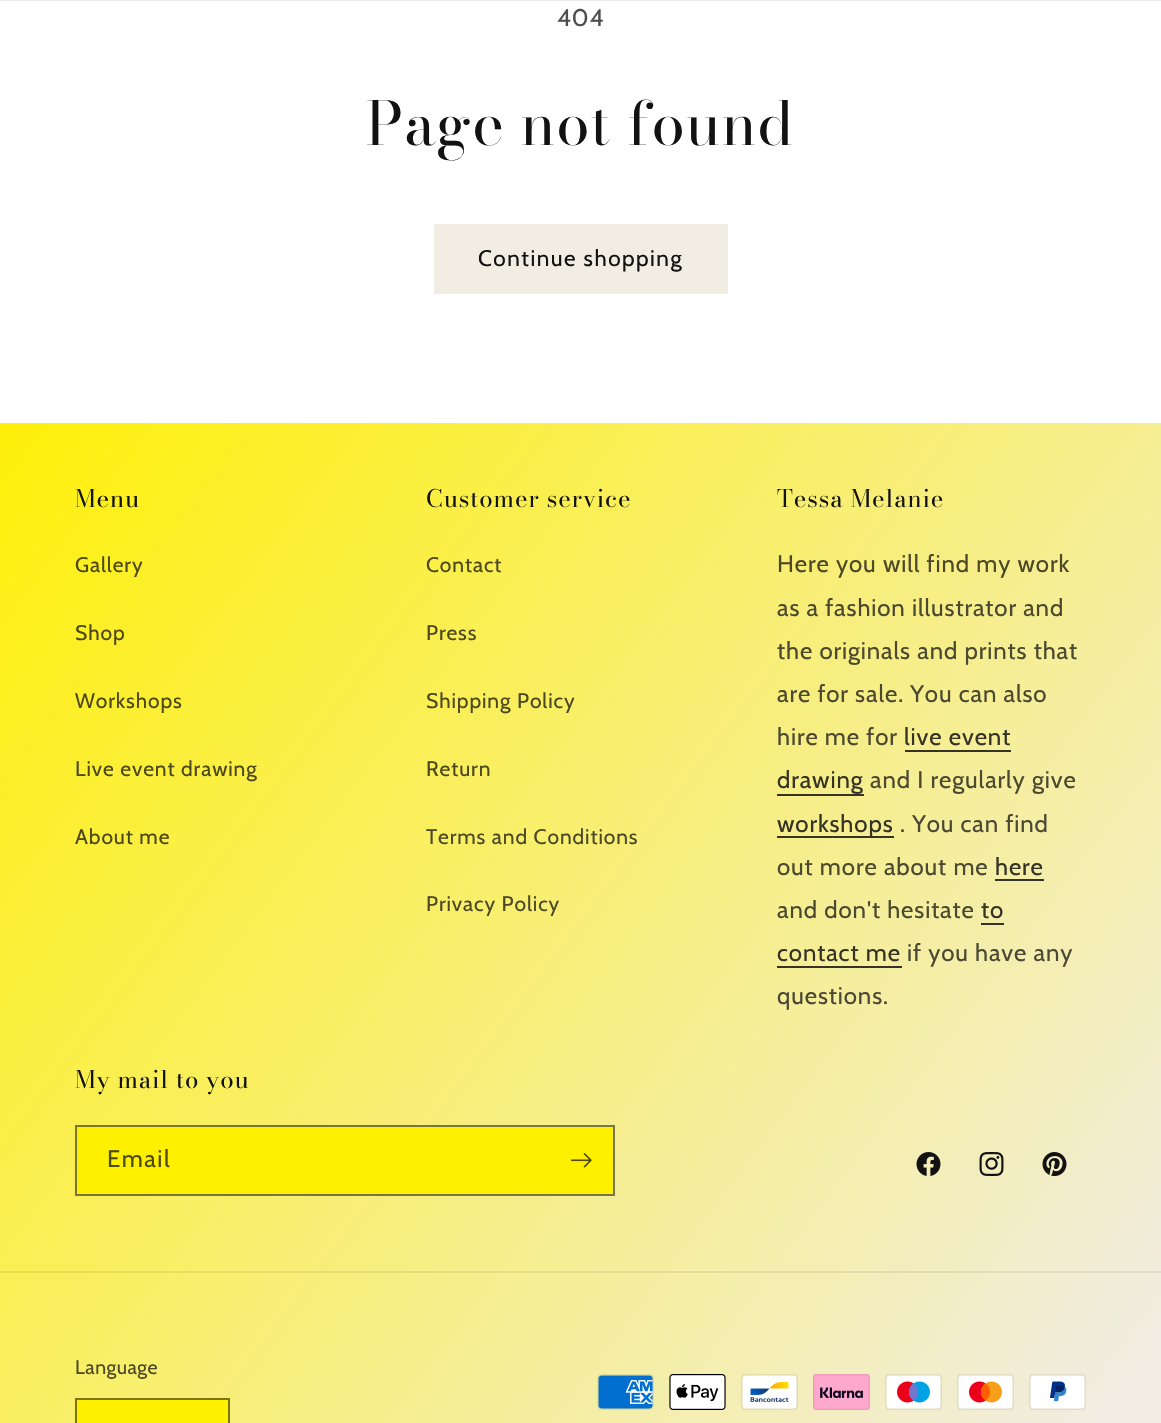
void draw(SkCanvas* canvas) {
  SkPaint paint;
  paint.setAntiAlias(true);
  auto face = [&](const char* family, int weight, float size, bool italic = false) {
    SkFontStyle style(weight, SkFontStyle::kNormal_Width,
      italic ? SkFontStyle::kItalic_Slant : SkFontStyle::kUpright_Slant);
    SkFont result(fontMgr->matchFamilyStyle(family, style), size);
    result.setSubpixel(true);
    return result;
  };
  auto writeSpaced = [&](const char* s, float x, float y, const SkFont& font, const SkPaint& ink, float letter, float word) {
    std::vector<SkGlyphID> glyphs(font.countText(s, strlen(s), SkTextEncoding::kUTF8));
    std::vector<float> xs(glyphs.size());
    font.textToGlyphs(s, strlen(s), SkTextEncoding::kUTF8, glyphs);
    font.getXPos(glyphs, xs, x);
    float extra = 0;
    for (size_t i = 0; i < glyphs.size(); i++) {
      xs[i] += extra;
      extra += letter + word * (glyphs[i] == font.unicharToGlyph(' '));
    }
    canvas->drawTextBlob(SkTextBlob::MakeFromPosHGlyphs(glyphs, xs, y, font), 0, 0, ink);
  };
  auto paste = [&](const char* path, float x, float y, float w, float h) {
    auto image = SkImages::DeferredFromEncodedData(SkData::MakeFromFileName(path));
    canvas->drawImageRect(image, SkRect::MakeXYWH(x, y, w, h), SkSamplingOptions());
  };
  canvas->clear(0xffffffff);
  paint.setColor(0xffececec);
  canvas->drawRect(SkRect::MakeXYWH(0, 0, 1161, 1), paint);
  paint.setColor(0xfff1ede2);
  canvas->drawRect(SkRect::MakeXYWH(434, 224, 294, 70), paint);
  {
    const SkColor colors[] = {0xfffff000, 0xfff1ede2};
    const float stops[] = {0.11f, 0.97f};
    const SkPoint ends[] = {{-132, 175}, {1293, 1249}};
    paint.setShader(SkGradientShader::MakeLinear(ends, colors, stops, 2, SkTileMode::kClamp));
    paint.setAlpha(255);
  }
  canvas->drawRect(SkRect::MakeXYWH(0, 423, 1161, 1000), paint);
  {
    const SkColor colors[] = {0xffecde01, 0xffdfdbd1};
    const float stops[] = {0.11f, 0.97f};
    const SkPoint ends[] = {{-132, 175}, {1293, 1249}};
    paint.setShader(SkGradientShader::MakeLinear(ends, colors, stops, 2, SkTileMode::kClamp));
    paint.setAlpha(255);
  }
  canvas->drawRect(SkRect::MakeXYWH(0, 1271, 1161, 2), paint);
  {
    const SkColor colors[] = {0xff36330f, 0xff333331};
    const float stops[] = {0.11f, 0.97f};
    const SkPoint ends[] = {{-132, 175}, {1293, 1249}};
    paint.setShader(SkGradientShader::MakeLinear(ends, colors, stops, 2, SkTileMode::kClamp));
    paint.setAlpha(255);
  }
  canvas->drawRect(SkRect::MakeXYWH(777, 966, 125, 2), paint);
  canvas->drawRect(SkRect::MakeXYWH(981, 923, 23, 2), paint);
  canvas->drawRect(SkRect::MakeXYWH(995, 879, 49, 2), paint);
  canvas->drawRect(SkRect::MakeXYWH(777, 836, 117, 2), paint);
  canvas->drawRect(SkRect::MakeXYWH(777, 794, 87, 2), paint);
  canvas->drawRect(SkRect::MakeXYWH(905, 750, 106, 2), paint);
  paint.setShader(nullptr);
  paint.setColor(0xfffff000);
  canvas->drawRect(SkRect::MakeXYWH(77, 1127, 537, 67), paint);
  paint.setStroke(true);
  paint.setStrokeWidth(2);
  paint.setColor(0x8c121212);
  canvas->drawRect(SkRect::MakeXYWH(76, 1126, 538, 69), paint);
  paste("img/1.png", 570, 1153, 22, 15);
  paste("img/2.png", 916, 1152, 25, 24);
  paste("img/3.png", 979, 1152, 25, 24);
  paste("img/4.png", 1042, 1152, 25, 25);
  paint.setStroke(false);
  paint.setColor(0xfffff000);
  canvas->drawRect(SkRect::MakeXYWH(76, 1399, 153, 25), paint);
  paint.setStroke(true);
  paint.setColor(0xff7d760a);
  canvas->drawRect(SkRect::MakeXYWH(76, 1399, 153, 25), paint);
  paste("img/5.png", 597, 1374, 57, 36);
  paste("img/6.png", 669, 1374, 57, 36);
  paste("img/7.png", 741, 1374, 57, 36);
  paste("img/8.png", 813, 1374, 57, 36);
  paste("img/9.png", 885, 1374, 57, 36);
  paste("img/10.png", 957, 1374, 57, 36);
  paste("img/11.png", 1029, 1374, 57, 36);
  auto f0 = face("Cabin", 400, 24);
  paint.setStroke(false);
  paint.setColor(0xff4d4d4d);
  writeSpaced("404", 557, 26, f0, paint, 0.9f, 0);
  auto f1 = face("Bodoni Moda", 400, 60);
  paint.setColor(0xff121212);
  writeSpaced("Page not found", 366, 145, f1, paint, 0.9f, 0);
  auto f2 = face("Cabin", 400, 22.5f);
  writeSpaced("Continue shopping", 478, 266, f2, paint, 1.5f, 0);
  auto f3 = face("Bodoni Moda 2", 400, 24);
  writeSpaced("Menu", 75, 507, f3, paint, 0.9f, 0);
  auto f4 = face("Cabin", 400, 21);
  paint.setColor(0xff4d4916);
  {
    const struct { const char* s; float x, y; } items[] = {
      {"Gallery", 75, 572},
      {"Shop", 75, 640},
      {"Workshops", 75, 708},
    };
    for (auto [s, x, y] : items) {
      writeSpaced(s, x, y, f4, paint, 0.9f, 0);
    }
  }
  paint.setColor(0xff4c491c);
  writeSpaced("Live event drawing", 75, 776, f4, paint, 0.9f, 0);
  writeSpaced("About me", 75, 844, f4, paint, 0.9f, 0);
  paint.setColor(0xff121212);
  writeSpaced("Customer service", 426, 507, f3, paint, 0.9f, 0);
  paint.setColor(0xff4c491c);
  writeSpaced("Contact", 426, 572, f4, paint, 0.9f, 0);
  paint.setColor(0xff4c4922);
  {
    const struct { const char* s; float x, y; } items[] = {
      {"Press", 426, 640},
      {"Shipping Policy", 426, 708},
      {"Return", 426, 776},
    };
    for (auto [s, x, y] : items) {
      writeSpaced(s, x, y, f4, paint, 0.9f, 0);
    }
  }
  paint.setColor(0xff4c4929);
  writeSpaced("Terms and Conditions", 426, 844, f4, paint, 0.9f, 0);
  writeSpaced("Privacy Policy", 426, 911, f4, paint, 0.9f, 0);
  paint.setColor(0xff121212);
  writeSpaced("Tessa Melanie", 777, 507, f3, paint, 0.9f, 0);
  paint.setColor(0xff4c4929);
  writeSpaced("Here you will find my work", 777, 572, f0, paint, 0.9f, 0);
  paint.setColor(0xff4b492f);
  {
    const struct { const char* s; float x, y; } items[] = {
      {"as a fashion illustrator and", 777, 616},
      {"the originals and prints that", 777, 659},
      {"are for sale. You can also", 777, 702},
      {"hire me for", 777, 745},
    };
    for (auto [s, x, y] : items) {
      writeSpaced(s, x, y, f0, paint, 0.9f, 0);
    }
  }
  paint.setColor(0xff343326);
  writeSpaced("live event", 904, 745, f0, paint, 0.9f, 0);
  writeSpaced("drawing", 777, 788, f0, paint, 0.9f, 0);
  paint.setColor(0xff4b492f);
  writeSpaced("and I regularly give", 870, 788, f0, paint, 0.9f, 0);
  paint.setColor(0xff343326);
  writeSpaced("workshops", 777, 832, f0, paint, 0.9f, 0);
  paint.setColor(0xff4b4935);
  writeSpaced(". You can find", 900, 832, f0, paint, 0.9f, 0);
  paint.setColor(0xff4b492f);
  writeSpaced("out more about me", 777, 875, f0, paint, 0.9f, 0);
  paint.setColor(0xff343326);
  writeSpaced("here", 995, 875, f0, paint, 0.9f, 0);
  paint.setColor(0xff4b492f);
  writeSpaced("and don't hesitate", 777, 918, f0, paint, 0.9f, 0);
  paint.setColor(0xff343326);
  writeSpaced("to", 981, 918, f0, paint, 0.9f, 0);
  writeSpaced("contact me", 777, 961, f0, paint, 0.9f, 0);
  paint.setColor(0xff4b4935);
  writeSpaced("if you have any", 907, 961, f0, paint, 0.9f, 0);
  writeSpaced("questions.", 777, 1004, f0, paint, 0.9f, 0);
  paint.setColor(0xff121212);
  writeSpaced("My mail to you", 75, 1088, f3, paint, 0.9f, 0);
  paint.setColor(0xff4d4a0e);
  writeSpaced("Email", 107, 1167, f0, paint, 1.5f, 0);
  auto f5 = face("Cabin", 400, 19.5f);
  paint.setColor(0xff4c4929);
  writeSpaced("Language", 75, 1374, f5, paint, 0.5f, 0);
}
